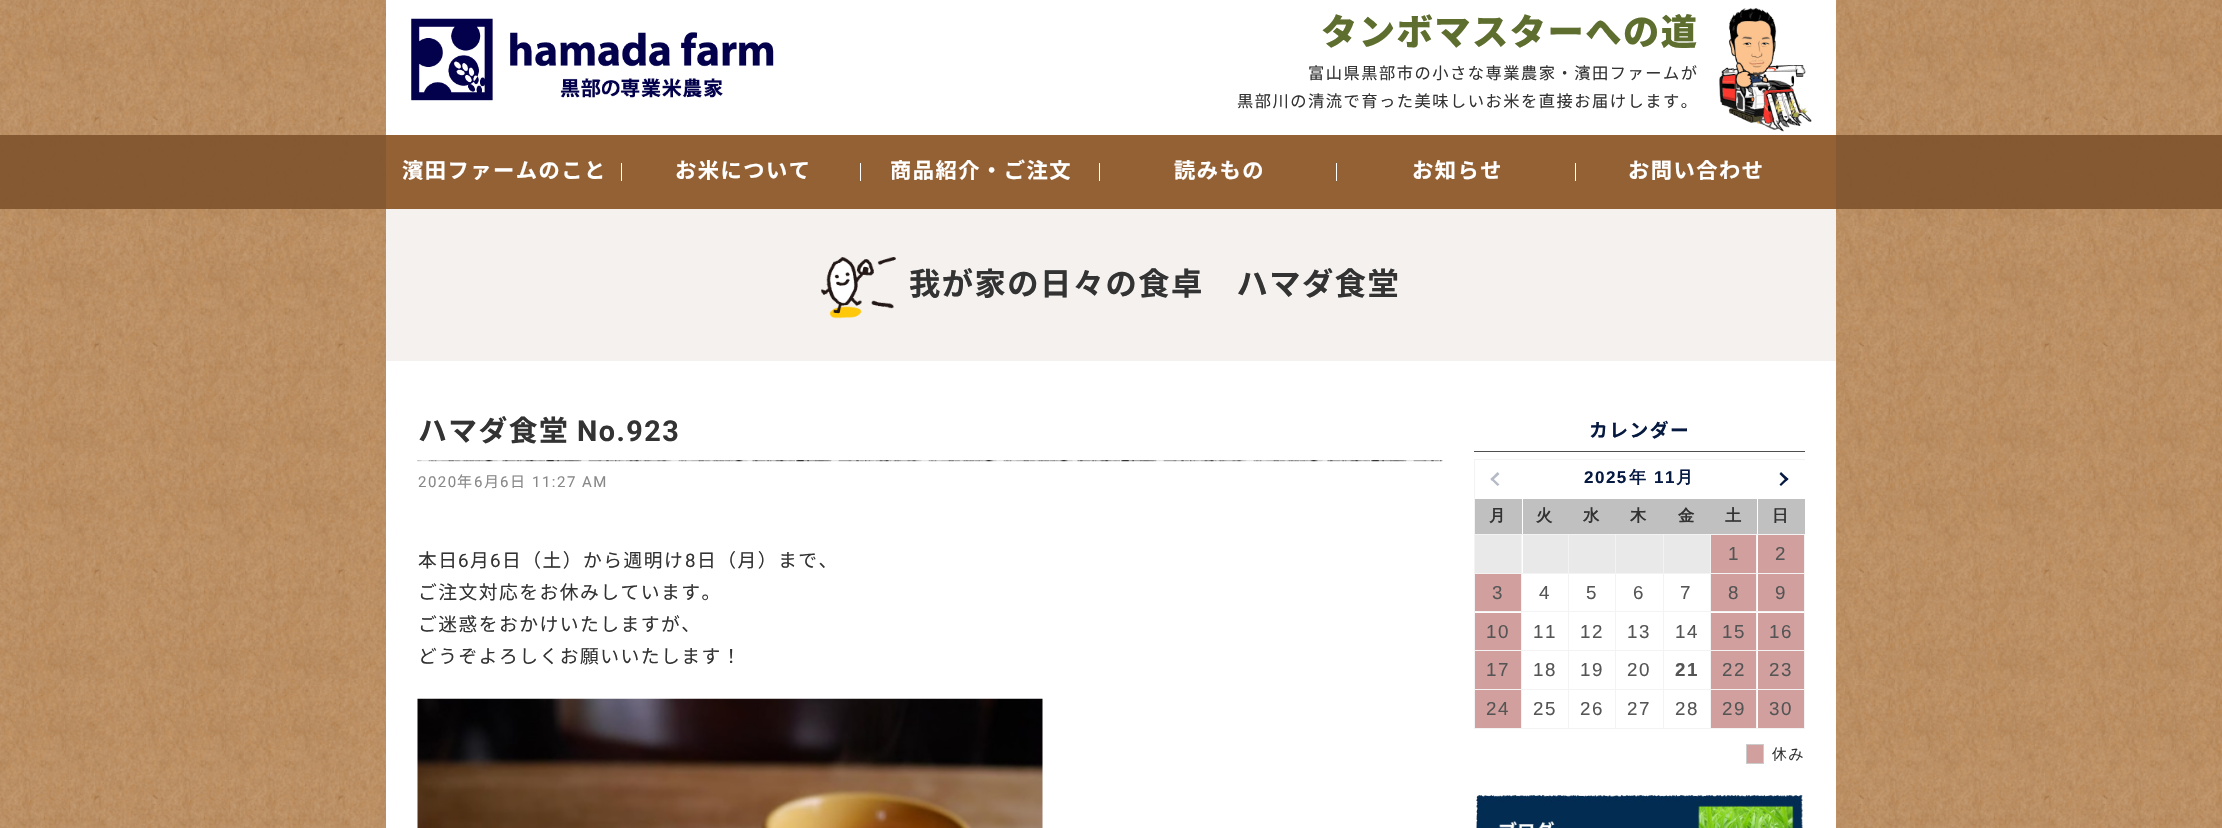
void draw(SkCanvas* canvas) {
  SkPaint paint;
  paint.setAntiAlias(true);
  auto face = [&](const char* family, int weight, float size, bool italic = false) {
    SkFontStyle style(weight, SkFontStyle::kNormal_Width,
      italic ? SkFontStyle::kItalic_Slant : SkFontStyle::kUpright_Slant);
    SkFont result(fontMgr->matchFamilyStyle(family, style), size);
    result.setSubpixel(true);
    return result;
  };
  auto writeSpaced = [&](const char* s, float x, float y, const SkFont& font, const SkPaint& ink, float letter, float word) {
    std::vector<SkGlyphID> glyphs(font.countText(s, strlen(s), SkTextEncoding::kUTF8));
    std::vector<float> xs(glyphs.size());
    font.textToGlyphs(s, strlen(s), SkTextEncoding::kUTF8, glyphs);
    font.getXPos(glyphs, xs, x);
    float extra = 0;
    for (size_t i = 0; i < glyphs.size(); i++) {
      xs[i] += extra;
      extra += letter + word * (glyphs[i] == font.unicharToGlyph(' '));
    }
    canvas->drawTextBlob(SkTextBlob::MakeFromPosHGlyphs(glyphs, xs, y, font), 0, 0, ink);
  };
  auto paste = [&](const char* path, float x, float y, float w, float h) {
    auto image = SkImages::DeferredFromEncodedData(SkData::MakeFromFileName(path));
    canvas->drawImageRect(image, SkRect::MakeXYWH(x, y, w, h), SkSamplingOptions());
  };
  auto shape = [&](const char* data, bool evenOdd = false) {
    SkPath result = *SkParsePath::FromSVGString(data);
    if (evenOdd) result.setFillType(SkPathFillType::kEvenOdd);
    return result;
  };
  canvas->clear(0xffffffff);
  paste("img/1.png", 0, 0, 2222, 828);
  paint.setColor(0xffffffff);
  canvas->drawRect(SkRect::MakeXYWH(386, 0, 1450, 135), paint);
  paste("img/2.png", 411, 18, 363, 83);
  paste("img/3.png", 1719, 7, 93, 125);
  {
    const struct { float x, y, w, h; SkColor color; } items[] = {
      {0, 135, 2222, 74, 0xe37e522b},
      {386, 135, 1450, 74, 0xff946134},
      {621, 163, 1, 18, 0xffffffff},
      {860, 163, 1, 18, 0xffffffff},
      {1099, 163, 1, 18, 0xffffffff},
      {1336, 163, 1, 18, 0xffffffff},
      {1575, 163, 1, 18, 0xffffffff},
      {386, 361, 1450, 467, 0xffffffff},
      {386, 209, 1450, 152, 0xfff4f1ef},
    };
    for (auto [x, y, w, h, color] : items) {
      paint.setColor(color);
      canvas->drawRect(SkRect::MakeXYWH(x, y, w, h), paint);
    }
  }
  paste("img/4.png", 821, 257, 75, 62);
  paste("img/5.png", 417, 460, 1026, 2);
  paste("img/6.png", 417, 698, 626, 130);
  {
    const struct { float x, y, w, h; SkColor color; } items[] = {
      {1474, 451, 331, 1, 0xff505050},
      {1474, 459, 331, 1, 0xfff3f3f3},
      {1474, 728, 331, 1, 0xfff3f3f3},
      {1474, 459, 1, 270, 0xfff3f3f3},
    };
    for (auto [x, y, w, h, color] : items) {
      paint.setColor(color);
      canvas->drawRect(SkRect::MakeXYWH(x, y, w, h), paint);
    }
  }
  paint.setColor(0xffb4bac6);
  canvas->drawPath(shape("M1492 477.5L1499.5 484.5L1497.5 486L1490.5 479Z"), paint);
  canvas->drawPath(shape("M1497.5 472L1499.5 474L1492 481L1490.5 479Z"), paint);
  paint.setColor(0xff061a41);
  canvas->drawPath(shape("M1781 472L1788.5 479L1786.5 481L1779.5 474Z"), paint);
  canvas->drawPath(shape("M1786.5 477.5L1788.5 479L1781 486L1779.5 484.5Z"), paint);
  {
    const struct { float x, y, w, h; SkColor color; } items[] = {
      {1475, 499, 47, 35, 0xffc0c0c0},
      {1523, 499, 234, 35, 0xffc0c0c0},
      {1758, 499, 47, 35, 0xffc0c0c0},
      {1475, 534, 330, 1, 0xfff3f3f3},
      {1521, 534, 1, 39, 0xfff3f3f3},
      {1475, 535, 46, 38, 0xffe9e9e9},
      {1568, 534, 1, 39, 0xfff3f3f3},
      {1523, 535, 45, 38, 0xffe9e9e9},
      {1615, 534, 1, 39, 0xfff3f3f3},
      {1569, 535, 46, 38, 0xffe9e9e9},
      {1663, 534, 1, 39, 0xfff3f3f3},
      {1616, 535, 47, 38, 0xffe9e9e9},
      {1710, 534, 1, 39, 0xfff3f3f3},
      {1664, 535, 46, 38, 0xffe9e9e9},
      {1756, 534, 1, 39, 0xfff3f3f3},
      {1711, 535, 45, 38, 0xffd1a09e},
      {1804, 534, 1, 39, 0xfff3f3f3},
      {1758, 535, 46, 38, 0xffd1a09e},
      {1475, 573, 330, 1, 0xfff3f3f3},
      {1521, 573, 1, 38, 0xfff3f3f3},
      {1475, 574, 46, 37, 0xffd1a09e},
      {1568, 573, 1, 38, 0xfff3f3f3},
      {1615, 573, 1, 38, 0xfff3f3f3},
      {1663, 573, 1, 38, 0xfff3f3f3},
      {1710, 573, 1, 38, 0xfff3f3f3},
      {1756, 573, 1, 38, 0xfff3f3f3},
      {1711, 574, 45, 37, 0xffd1a09e},
      {1804, 573, 1, 38, 0xfff3f3f3},
      {1758, 574, 46, 37, 0xffd1a09e},
      {1475, 611, 330, 1, 0xfff3f3f3},
      {1521, 611, 1, 39, 0xfff3f3f3},
      {1475, 613, 46, 37, 0xffd1a09e},
      {1568, 611, 1, 39, 0xfff3f3f3},
      {1615, 611, 1, 39, 0xfff3f3f3},
      {1663, 611, 1, 39, 0xfff3f3f3},
      {1710, 611, 1, 39, 0xfff3f3f3},
      {1756, 611, 1, 39, 0xfff3f3f3},
      {1711, 613, 45, 37, 0xffd1a09e},
      {1804, 611, 1, 39, 0xfff3f3f3},
      {1758, 613, 46, 37, 0xffd1a09e},
      {1475, 650, 330, 1, 0xfff3f3f3},
      {1521, 650, 1, 39, 0xfff3f3f3},
      {1475, 651, 46, 38, 0xffd1a09e},
      {1568, 650, 1, 39, 0xfff3f3f3},
      {1615, 650, 1, 39, 0xfff3f3f3},
      {1663, 650, 1, 39, 0xfff3f3f3},
      {1710, 650, 1, 39, 0xfff3f3f3},
      {1756, 650, 1, 39, 0xfff3f3f3},
      {1711, 651, 45, 38, 0xffd1a09e},
      {1804, 650, 1, 39, 0xfff3f3f3},
      {1758, 651, 46, 38, 0xffd1a09e},
      {1475, 689, 330, 1, 0xfff3f3f3},
      {1521, 689, 1, 39, 0xfff3f3f3},
      {1475, 690, 46, 38, 0xffd1a09e},
      {1568, 689, 1, 39, 0xfff3f3f3},
      {1615, 689, 1, 39, 0xfff3f3f3},
      {1663, 689, 1, 39, 0xfff3f3f3},
      {1710, 689, 1, 39, 0xfff3f3f3},
      {1756, 689, 1, 39, 0xfff3f3f3},
      {1711, 690, 45, 38, 0xffd1a09e},
      {1804, 689, 1, 39, 0xfff3f3f3},
      {1758, 690, 46, 38, 0xffd1a09e},
    };
    for (auto [x, y, w, h, color] : items) {
      paint.setColor(color);
      canvas->drawRect(SkRect::MakeXYWH(x, y, w, h), paint);
    }
  }
  canvas->drawRect(SkRect::MakeXYWH(1746.5f, 744.5f, 17, 19), paint);
  paint.setStroke(true);
  paint.setStrokeWidth(1);
  paint.setColor(0xffcccccc);
  canvas->drawRect(SkRect::MakeXYWH(1746.5f, 744.5f, 17, 19), paint);
  paste("img/7.png", 1476, 795, 327, 33);
  auto f0 = face("Noto Sans JP", 900, 36.25f);
  paint.setStroke(false);
  paint.setColor(0xff5e6e2f);
  writeSpaced("タンボマスターへの道", 1321, 45, f0, paint, 1.5f, 0);
  auto f1 = face("Noto Sans JP", 400, 16.25f);
  paint.setColor(0xff333333);
  writeSpaced("富山県黒部市の小さな専業農家・濱田ファームが", 1308, 79, f1, paint, 1.5f, 0);
  writeSpaced("黒部川の清流で育った美味しいお米を直接お届けします。", 1237, 107, f1, paint, 1.5f, 0);
  auto f2 = face("Noto Sans JP", 700, 21.25f);
  paint.setColor(0xffffffff);
  {
    const struct { const char* s; float x, y; } items[] = {
      {"濱田ファームのこと", 402, 178},
      {"お米について", 675, 178},
      {"商品紹介・ご注文", 890, 178},
      {"読みもの", 1174, 178},
      {"お知らせ", 1412, 178},
      {"お問い合わせ", 1628, 178},
    };
    for (auto [s, x, y] : items) {
      writeSpaced(s, x, y, f2, paint, 1.5f, 0);
    }
  }
  auto f3 = face("Noto Sans JP", 700, 31.25f);
  paint.setColor(0xff333333);
  writeSpaced("我が家の日々の食卓　ハマダ食堂", 909, 295, f3, paint, 1.5f, 0);
  auto f4 = face("Noto Sans JP", 700, 28.75f);
  writeSpaced("ハマダ食堂", 418, 441, f4, paint, 1.5f, 0);
  auto f5 = face("Roboto", 700, 28.75f);
  writeSpaced("No.923", 577, 441, f5, paint, 1.5f, 0);
  auto f6 = face("Roboto", 400, 15);
  paint.setColor(0xff888888);
  writeSpaced("2020", 418, 487, f6, paint, 1.5f, 0);
  auto f7 = face("Noto Sans JP", 400, 15);
  writeSpaced("年", 457, 487, f7, paint, 1.5f, 0);
  writeSpaced("6", 474, 487, f6, paint, 1.5f, 0);
  writeSpaced("月", 484, 487, f7, paint, 1.5f, 0);
  writeSpaced("6", 500, 487, f6, paint, 1.5f, 0);
  writeSpaced("日", 510, 487, f7, paint, 1.5f, 0);
  writeSpaced("11:27 AM", 532, 487, f6, paint, 1.5f, 0);
  auto f8 = face("Noto Sans JP", 400, 18.75f);
  paint.setColor(0xff333333);
  writeSpaced("本日", 418, 567, f8, paint, 1.5f, 0);
  auto f9 = face("Roboto", 400, 18.75f);
  writeSpaced("6", 458, 567, f9, paint, 1.5f, 0);
  writeSpaced("月", 470, 567, f8, paint, 1.5f, 0);
  writeSpaced("6", 490, 567, f9, paint, 1.5f, 0);
  writeSpaced("日（土）から週明け", 502, 567, f8, paint, 1.5f, 0);
  writeSpaced("8", 685, 567, f9, paint, 1.5f, 0);
  {
    const struct { const char* s; float x, y; } items[] = {
      {"日（月）まで、", 697, 567},
      {"ご注文対応をお休みしています。", 418, 599},
      {"ご迷惑をおかけいたしますが、", 418, 631},
      {"どうぞよろしくお願いいたします！", 418, 663},
    };
    for (auto [s, x, y] : items) {
      writeSpaced(s, x, y, f8, paint, 1.5f, 0);
    }
  }
  auto f10 = face("Noto Sans JP", 700, 18.75f);
  paint.setColor(0xff061a41);
  writeSpaced("カレンダー", 1589, 437, f10, paint, 1.5f, 0);
  auto f11 = face("Liberation Sans", 700, 17);
  writeSpaced("2025", 1584, 483, f11, paint, 1.5f, 0);
  auto f12 = face("WenQuanYi Zen Hei", 700, 17);
  writeSpaced("年", 1629, 483, f12, paint, 1.5f, 0);
  writeSpaced("11", 1654, 483, f11, paint, 1.5f, 0);
  writeSpaced("月", 1676, 483, f12, paint, 1.5f, 0);
  auto f13 = face("WenQuanYi Zen Hei", 700, 16.25f);
  paint.setColor(0xff333333);
  {
    const struct { const char* s; float x, y; } items[] = {
      {"月", 1489, 521},
      {"火", 1536, 521},
      {"水", 1583, 521},
      {"木", 1630, 521},
      {"金", 1678, 521},
      {"土", 1725, 521},
      {"日", 1772, 521},
    };
    for (auto [s, x, y] : items) {
      writeSpaced(s, x, y, f13, paint, 1.5f, 0);
    }
  }
  auto f14 = face("Liberation Sans", 400, 18.75f);
  paint.setColor(0xff555555);
  {
    const struct { const char* s; float x, y; } items[] = {
      {"1", 1728, 560},
      {"2", 1775, 560},
      {"3", 1492, 599},
      {"4", 1539, 599},
      {"5", 1586, 599},
      {"6", 1633, 599},
      {"7", 1680, 599},
      {"8", 1728, 599},
      {"9", 1775, 599},
      {"10", 1486, 638},
      {"11", 1533, 638},
      {"12", 1580, 638},
      {"13", 1627, 638},
      {"14", 1675, 638},
      {"15", 1722, 638},
      {"16", 1769, 638},
      {"17", 1486, 676},
      {"18", 1533, 676},
      {"19", 1580, 676},
      {"20", 1627, 676},
    };
    for (auto [s, x, y] : items) {
      writeSpaced(s, x, y, f14, paint, 1.5f, 0);
    }
  }
  auto f15 = face("Liberation Sans", 700, 18.75f);
  writeSpaced("21", 1675, 676, f15, paint, 1.5f, 0);
  {
    const struct { const char* s; float x, y; } items[] = {
      {"22", 1722, 676},
      {"23", 1769, 676},
      {"24", 1486, 715},
      {"25", 1533, 715},
      {"26", 1580, 715},
      {"27", 1627, 715},
      {"28", 1675, 715},
      {"29", 1722, 715},
      {"30", 1769, 715},
    };
    for (auto [s, x, y] : items) {
      writeSpaced(s, x, y, f14, paint, 1.5f, 0);
    }
  }
  auto f16 = face("WenQuanYi Zen Hei", 500, 15);
  paint.setColor(0xff333333);
  writeSpaced("休み", 1772, 759, f16, paint, 1.5f, 0);
}
